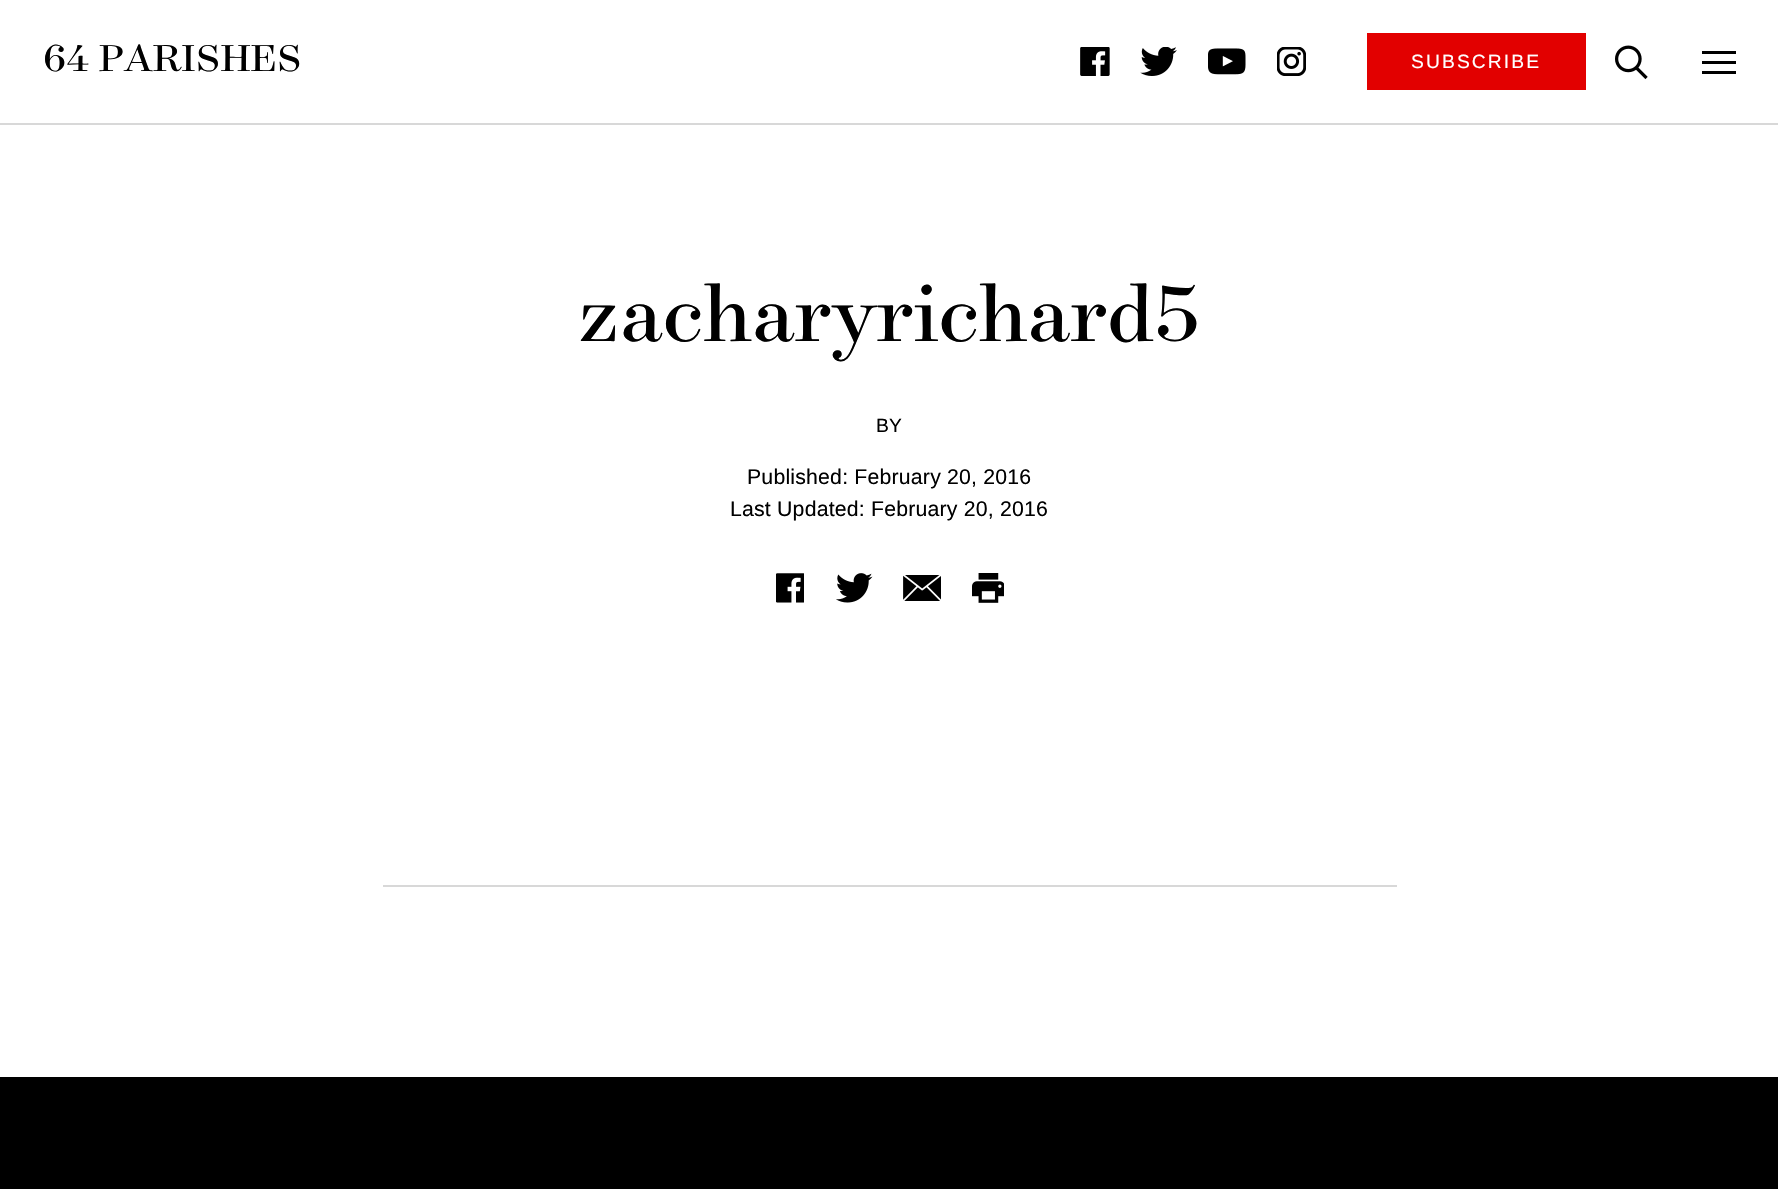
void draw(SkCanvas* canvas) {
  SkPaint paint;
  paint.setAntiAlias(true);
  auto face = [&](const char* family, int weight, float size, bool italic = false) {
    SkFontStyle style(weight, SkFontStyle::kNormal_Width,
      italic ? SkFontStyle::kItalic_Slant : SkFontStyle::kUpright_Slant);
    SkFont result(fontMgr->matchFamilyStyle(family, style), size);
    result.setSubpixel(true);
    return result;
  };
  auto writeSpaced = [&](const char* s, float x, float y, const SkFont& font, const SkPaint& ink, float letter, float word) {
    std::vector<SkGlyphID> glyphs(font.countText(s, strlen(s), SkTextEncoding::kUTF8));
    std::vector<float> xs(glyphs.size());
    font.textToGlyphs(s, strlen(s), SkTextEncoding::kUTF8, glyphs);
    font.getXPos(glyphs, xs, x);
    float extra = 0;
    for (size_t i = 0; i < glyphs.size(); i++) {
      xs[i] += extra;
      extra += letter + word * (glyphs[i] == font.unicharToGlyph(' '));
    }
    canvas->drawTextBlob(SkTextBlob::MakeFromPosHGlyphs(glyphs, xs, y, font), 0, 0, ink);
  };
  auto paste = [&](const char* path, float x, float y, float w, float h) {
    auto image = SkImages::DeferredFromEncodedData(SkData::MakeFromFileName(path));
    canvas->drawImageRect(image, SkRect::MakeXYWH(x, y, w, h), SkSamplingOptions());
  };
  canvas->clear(0xffffffff);
  paint.setColor(0xffd8d8d8);
  canvas->drawRect(SkRect::MakeXYWH(0, 123, 1778, 2), paint);
  paste("img/1.png", 1080, 47, 30, 29);
  paste("img/2.png", 1140, 47, 37, 29);
  paste("img/3.png", 1208, 48, 38, 27);
  paste("img/4.png", 1277, 47, 29, 29);
  paint.setColor(0xffe20000);
  canvas->drawRect(SkRect::MakeXYWH(1367, 33, 219, 57), paint);
  paste("img/5.png", 1615, 45, 33, 35);
  {
    const struct { float x, y, w, h; SkColor color; } items[] = {
      {1702, 51, 34, 3, 0xff000000},
      {1702, 61, 34, 3, 0xff000000},
      {1702, 71, 34, 3, 0xff000000},
    };
    for (auto [x, y, w, h, color] : items) {
      paint.setColor(color);
      canvas->drawRect(SkRect::MakeXYWH(x, y, w, h), paint);
    }
  }
  paste("img/6.png", 776, 573, 28, 30);
  paste("img/7.png", 836, 573, 37, 30);
  paste("img/8.png", 903, 575, 38, 26);
  paste("img/9.png", 972, 573, 32, 30);
  paint.setColor(0xffd8d8d8);
  canvas->drawRect(SkRect::MakeXYWH(383, 885, 1014, 2), paint);
  paint.setColor(0xff000000);
  canvas->drawRect(SkRect::MakeXYWH(0, 1077, 1778, 112), paint);
  auto f0 = face("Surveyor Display", 400, 42.5f);
  writeSpaced("64 PARISHES", 43, 71, f0, paint, 0.2f, 0);
  auto f1 = face("Liberation Sans", 400, 19.25f);
  paint.setColor(0xffffffff);
  writeSpaced("SUBSCRIBE", 1411, 68, f1, paint, 2.1f, 0);
  auto f2 = face("Surveyor Display", 400, 90.5f);
  paint.setColor(0xff000000);
  writeSpaced("zacharyrichard5", 578, 341, f2, paint, 0.2f, 0);
  writeSpaced("BY", 876, 432, f1, paint, 0.2f, 0);
  auto f3 = face("Liberation Sans", 400, 21.25f);
  writeSpaced("Published: February 20, 2016", 747, 484, f3, paint, 0.2f, 0);
  writeSpaced("Last Updated: February 20, 2016", 730, 516, f3, paint, 0.2f, 0);
}
